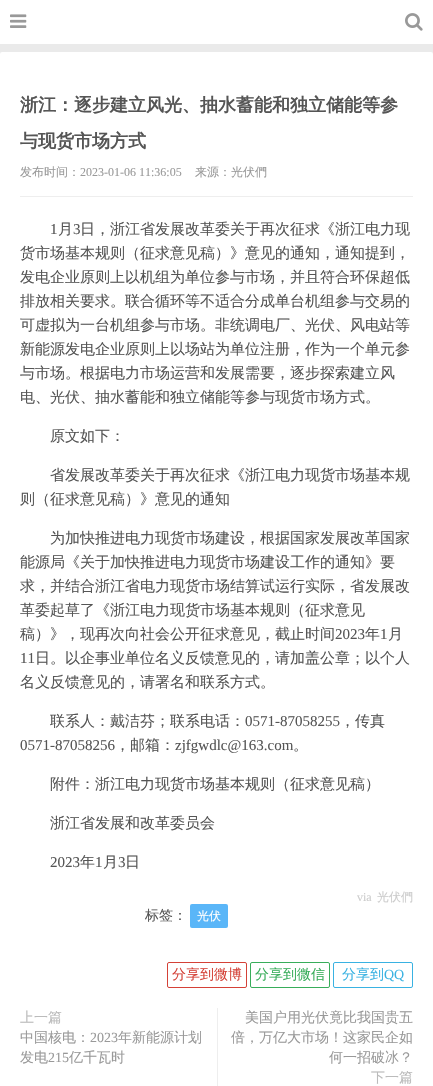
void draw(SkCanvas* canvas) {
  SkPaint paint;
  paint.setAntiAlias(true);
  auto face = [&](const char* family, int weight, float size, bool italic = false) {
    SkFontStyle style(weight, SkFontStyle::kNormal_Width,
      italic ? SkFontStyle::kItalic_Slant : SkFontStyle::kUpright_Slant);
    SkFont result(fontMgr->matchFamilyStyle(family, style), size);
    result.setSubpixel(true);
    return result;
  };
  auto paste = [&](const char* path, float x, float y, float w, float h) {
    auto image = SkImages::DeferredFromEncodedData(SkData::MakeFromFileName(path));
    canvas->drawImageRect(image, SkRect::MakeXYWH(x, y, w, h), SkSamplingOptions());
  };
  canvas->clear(0xffeaeaea);
  paint.setColor(0xffffffff);
  canvas->drawRect(SkRect::MakeXYWH(0, 0, 433, 44), paint);
  paste("img/1.png", 10, 14, 17, 14);
  paste("img/2.png", 405, 13, 18, 18);
  canvas->drawRoundRect(SkRect::MakeXYWH(0, 52, 433, 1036), 2, 2, paint);
  paint.setColor(0xffeeeeee);
  canvas->drawRect(SkRect::MakeXYWH(20, 196, 393, 1), paint);
  paint.setColor(0xff5ab6f8);
  canvas->drawRoundRect(SkRect::MakeXYWH(190, 904, 38, 24), 2, 2, paint);
  paint.setStroke(true);
  paint.setStrokeWidth(1);
  paint.setColor(0xffd44137);
  canvas->drawRoundRect(SkRect::MakeXYWH(167.5f, 962.5f, 79, 25), 1.5f, 1.5f, paint);
  paint.setColor(0xff38ad5a);
  canvas->drawRoundRect(SkRect::MakeXYWH(250.5f, 962.5f, 79, 25), 1.5f, 1.5f, paint);
  paint.setColor(0xff39b2e2);
  canvas->drawRoundRect(SkRect::MakeXYWH(333.5f, 962.5f, 79, 25), 1.5f, 1.5f, paint);
  paint.setStroke(false);
  paint.setColor(0xffeeeeee);
  canvas->drawRect(SkRect::MakeXYWH(217, 1008, 1, 78), paint);
  auto f0 = face("WenQuanYi Zen Hei", 700, 18);
  paint.setColor(0xff555555);
  canvas->drawString("浙江：逐步建立风光、抽水蓄能和独立储能等参", 20, 111, f0, paint);
  canvas->drawString("与现货市场方式", 20, 147, f0, paint);
  auto f1 = face("WenQuanYi Zen Hei", 500, 12);
  paint.setColor(0xff999999);
  canvas->drawString("发布时间：", 20, 176, f1, paint);
  auto f2 = face("Liberation Serif", 400, 12);
  canvas->drawString("2023-01-06 11:36:05", 80, 176, f2, paint);
  canvas->drawString("来源：光伏們", 195, 176, f1, paint);
  auto f3 = face("Liberation Serif", 400, 15);
  paint.setColor(0xff555555);
  canvas->drawString("1", 50, 234, f3, paint);
  auto f4 = face("WenQuanYi Zen Hei", 500, 15);
  canvas->drawString("月", 58, 234, f4, paint);
  canvas->drawString("3", 73, 234, f3, paint);
  {
    const struct { const char* s; float x, y; } items[] = {
      {"日，浙江省发展改革委关于再次征求《浙江电力现", 80, 234},
      {"货市场基本规则（征求意见稿）》意见的通知，通知提到，", 20, 258},
      {"发电企业原则上以机组为单位参与市场，并且符合环保超低", 20, 282},
      {"排放相关要求。联合循环等不适合分成单台机组参与交易的", 20, 306},
      {"可虚拟为一台机组参与市场。非统调电厂、光伏、风电站等", 20, 330},
      {"新能源发电企业原则上以场站为单位注册，作为一个单元参", 20, 354},
      {"与市场。根据电力市场运营和发展需要，逐步探索建立风", 20, 378},
      {"电、光伏、抽水蓄能和独立储能等参与现货市场方式。", 20, 402},
      {"原文如下：", 50, 441},
      {"省发展改革委关于再次征求《浙江电力现货市场基本规", 50, 480},
      {"则（征求意见稿）》意见的通知", 20, 504},
      {"为加快推进电力现货市场建设，根据国家发展改革国家", 50, 543},
      {"能源局《关于加快推进电力现货市场建设工作的通知》要", 20, 567},
      {"求，并结合浙江省电力现货市场结算试运行实际，省发展改", 20, 591},
      {"革委起草了《浙江电力现货市场基本规则（征求意见", 20, 615},
      {"稿）》，现再次向社会公开征求意见，截止时间", 20, 639},
    };
    for (auto [s, x, y] : items) {
      canvas->drawString(s, x, y, f4, paint);
    }
  }
  canvas->drawString("2023", 335, 639, f3, paint);
  canvas->drawString("年", 365, 639, f4, paint);
  canvas->drawString("1", 380, 639, f3, paint);
  canvas->drawString("月", 388, 639, f4, paint);
  canvas->drawString("11", 20, 663, f3, paint);
  {
    const struct { const char* s; float x, y; } items[] = {
      {"日。以企事业单位名义反馈意见的，请加盖公章；以个人", 35, 663},
      {"名义反馈意见的，请署名和联系方式。", 20, 687},
      {"联系人：戴洁芬；联系电话：", 50, 726},
    };
    for (auto [s, x, y] : items) {
      canvas->drawString(s, x, y, f4, paint);
    }
  }
  canvas->drawString("0571-87058255", 245, 726, f3, paint);
  canvas->drawString("，传真", 340, 726, f4, paint);
  canvas->drawString("0571-87058256", 20, 750, f3, paint);
  canvas->drawString("，邮箱：", 115, 750, f4, paint);
  canvas->drawString("zjfgwdlc@163.com", 175, 750, f3, paint);
  {
    const struct { const char* s; float x, y; } items[] = {
      {"。", 293, 750},
      {"附件：浙江电力现货市场基本规则（征求意见稿）", 50, 789},
      {"浙江省发展和改革委员会", 50, 828},
    };
    for (auto [s, x, y] : items) {
      canvas->drawString(s, x, y, f4, paint);
    }
  }
  canvas->drawString("2023", 50, 867, f3, paint);
  canvas->drawString("年", 80, 867, f4, paint);
  canvas->drawString("1", 95, 867, f3, paint);
  canvas->drawString("月", 103, 867, f4, paint);
  canvas->drawString("3", 118, 867, f3, paint);
  canvas->drawString("日", 125, 867, f4, paint);
  paint.setColor(0xffcccccc);
  canvas->drawString("via", 357, 901, f2, paint);
  canvas->drawString("光伏們", 377, 901, f1, paint);
  auto f5 = face("WenQuanYi Zen Hei", 500, 14);
  paint.setColor(0xff555555);
  canvas->drawString("标签：", 145, 920, f5, paint);
  paint.setColor(0xffffffff);
  canvas->drawString("光伏", 197, 920, f1, paint);
  paint.setColor(0xffd44137);
  canvas->drawString("分享到微博", 172, 979, f5, paint);
  paint.setColor(0xff38ad5a);
  canvas->drawString("分享到微信", 255, 979, f5, paint);
  paint.setColor(0xff39b2e2);
  canvas->drawString("分享到", 342, 979, f5, paint);
  auto f6 = face("Liberation Serif", 400, 14);
  canvas->drawString("QQ", 384, 979, f6, paint);
  paint.setColor(0xffbbbbbb);
  canvas->drawString("上一篇", 20, 1022, f5, paint);
  paint.setColor(0xff999999);
  canvas->drawString("中国核电：", 20, 1042, f5, paint);
  canvas->drawString("2023", 90, 1042, f6, paint);
  canvas->drawString("年新能源计划", 118, 1042, f5, paint);
  canvas->drawString("发电", 20, 1062, f5, paint);
  canvas->drawString("215", 48, 1062, f6, paint);
  {
    const struct { const char* s; float x, y; } items[] = {
      {"亿千瓦时", 69, 1062},
      {"美国户用光伏竟比我国贵五", 245, 1022},
      {"倍，万亿大市场！这家民企如", 231, 1042},
      {"何一招破冰？", 329, 1062},
    };
    for (auto [s, x, y] : items) {
      canvas->drawString(s, x, y, f5, paint);
    }
  }
  paint.setColor(0xffbbbbbb);
  canvas->drawString("下一篇", 371, 1082, f5, paint);
}
